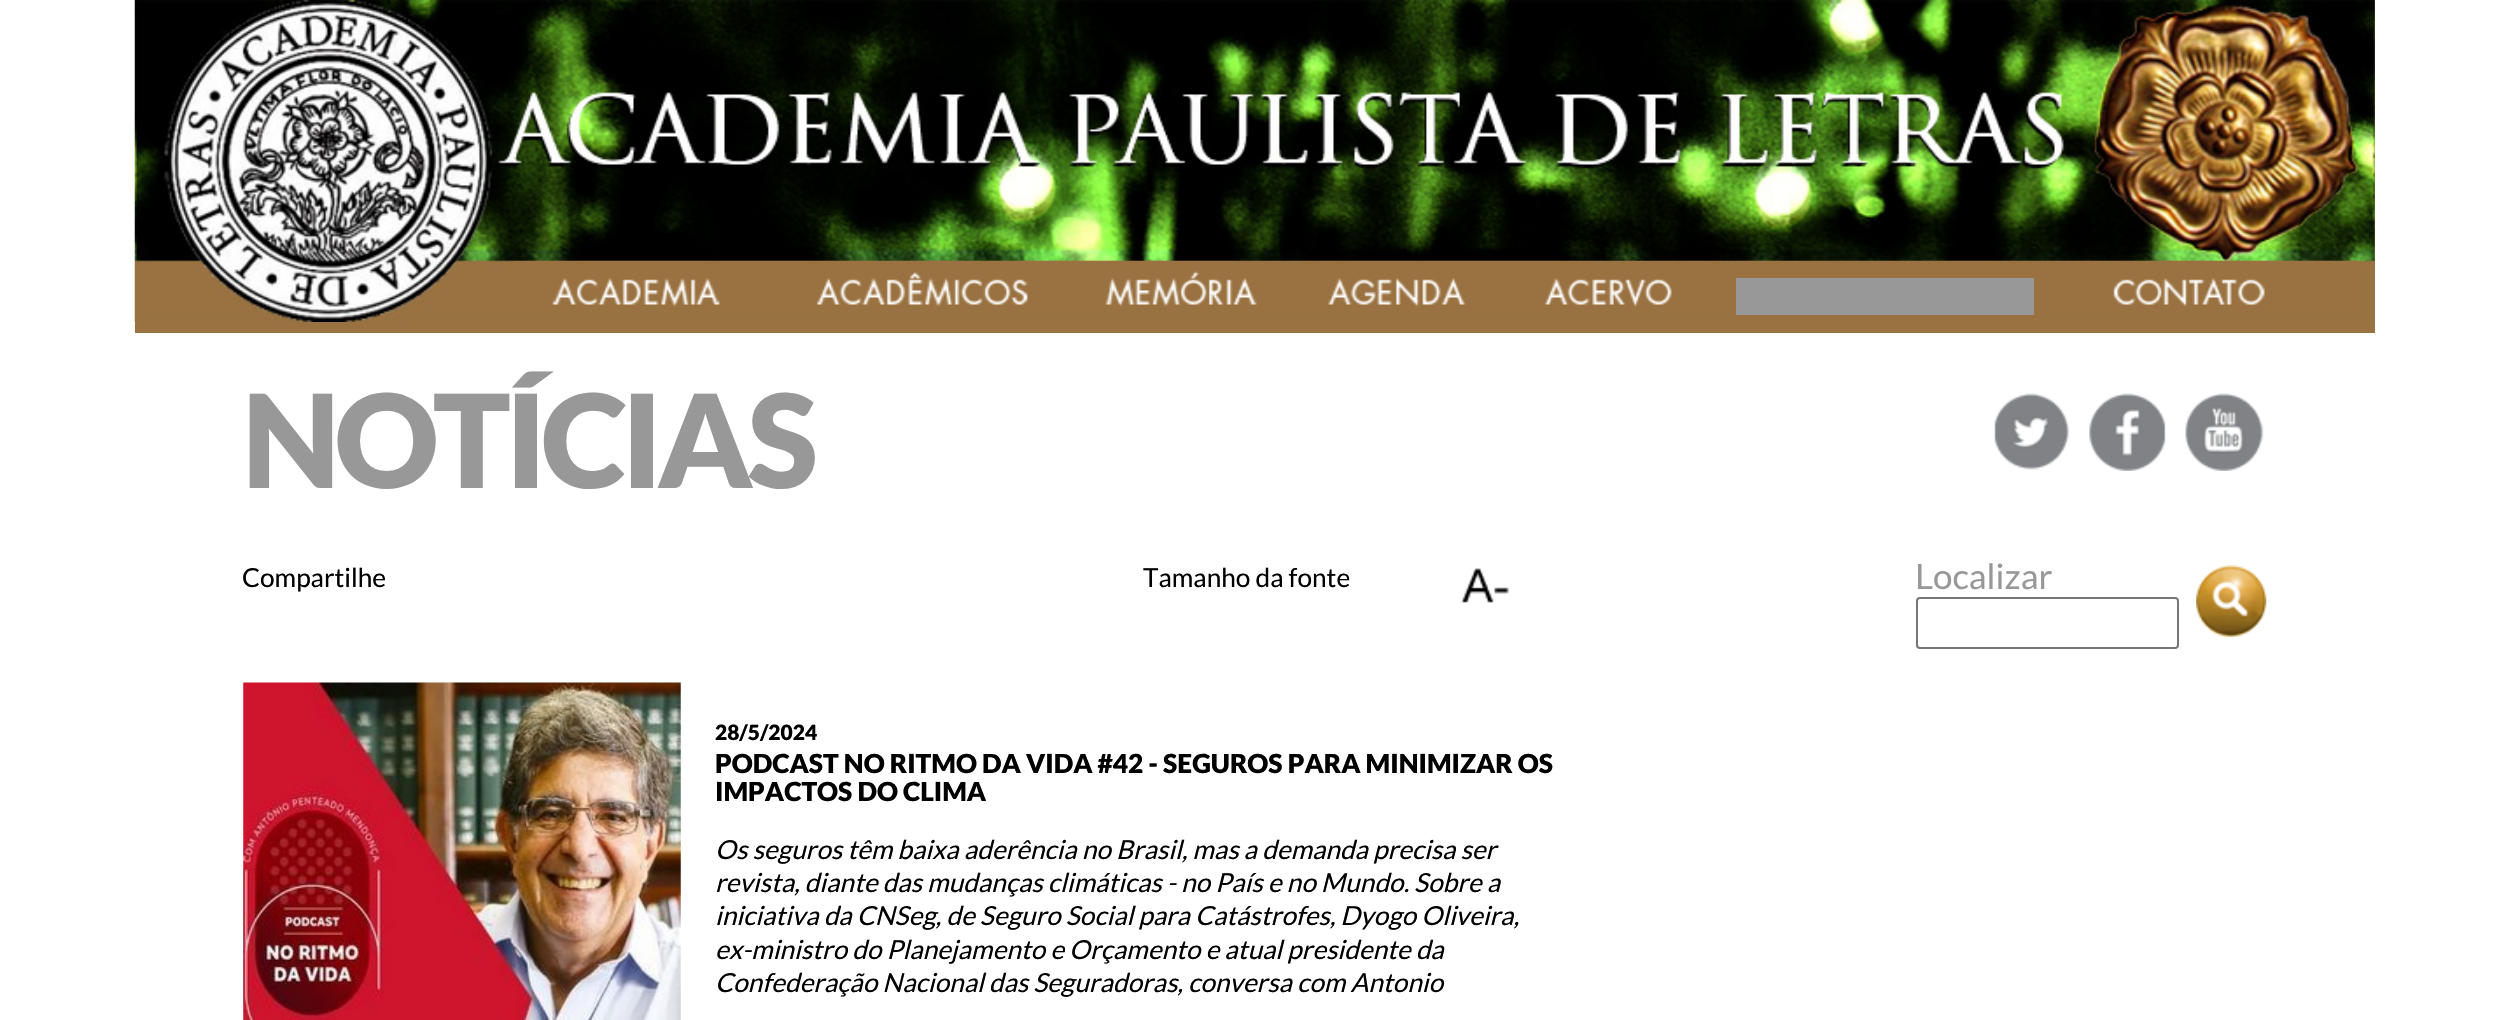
void draw(SkCanvas* canvas) {
  SkPaint paint;
  paint.setAntiAlias(true);
  auto face = [&](const char* family, int weight, float size, bool italic = false) {
    SkFontStyle style(weight, SkFontStyle::kNormal_Width,
      italic ? SkFontStyle::kItalic_Slant : SkFontStyle::kUpright_Slant);
    SkFont result(fontMgr->matchFamilyStyle(family, style), size);
    result.setSubpixel(true);
    return result;
  };
  auto writeSpaced = [&](const char* s, float x, float y, const SkFont& font, const SkPaint& ink, float letter, float word) {
    std::vector<SkGlyphID> glyphs(font.countText(s, strlen(s), SkTextEncoding::kUTF8));
    std::vector<float> xs(glyphs.size());
    font.textToGlyphs(s, strlen(s), SkTextEncoding::kUTF8, glyphs);
    font.getXPos(glyphs, xs, x);
    float extra = 0;
    for (size_t i = 0; i < glyphs.size(); i++) {
      xs[i] += extra;
      extra += letter + word * (glyphs[i] == font.unicharToGlyph(' '));
    }
    canvas->drawTextBlob(SkTextBlob::MakeFromPosHGlyphs(glyphs, xs, y, font), 0, 0, ink);
  };
  auto paste = [&](const char* path, float x, float y, float w, float h) {
    auto image = SkImages::DeferredFromEncodedData(SkData::MakeFromFileName(path));
    canvas->drawImageRect(image, SkRect::MakeXYWH(x, y, w, h), SkSamplingOptions());
  };
  canvas->clear(0xffffffff);
  paint.setColor(0xff9a7241);
  canvas->drawRect(SkRect::MakeXYWH(135, 0, 2240, 333), paint);
  paste("img/1.png", 134, 0, 2241, 322);
  canvas->drawRect(SkRect::MakeXYWH(513, 261, 1846, 6), paint);
  paste("img/2.png", 552, 278, 168, 29);
  paste("img/3.png", 816, 272, 212, 35);
  paste("img/4.png", 1105, 271, 152, 36);
  paste("img/5.png", 1327, 278, 139, 29);
  paste("img/6.png", 1544, 278, 128, 29);
  paint.setColor(0xff999898);
  canvas->drawRect(SkRect::MakeXYWH(1736, 278, 298, 37), paint);
  paste("img/7.png", 2113, 278, 152, 29);
  paste("img/8.png", 1994, 393, 270, 78);
  paste("img/9.png", 1461, 568, 48, 35);
  paste("img/10.png", 243, 682, 438, 338);
  paint.setStroke(true);
  paint.setStrokeWidth(2);
  paint.setColor(0xff767676);
  canvas->drawRoundRect(SkRect::MakeXYWH(1917, 598, 261, 50), 3, 3, paint);
  paste("img/11.png", 2196, 565, 71, 72);
  auto f0 = face("Lato", 900, 129.5f);
  paint.setStroke(false);
  paint.setColor(0xff999898);
  writeSpaced("NOTÍCIAS", 242, 488, f0, paint, -5.25f, 0);
  auto f1 = face("Lato", 400, 26.25f);
  paint.setColor(0xff000000);
  canvas->drawString("Compartilhe", 242, 587, f1, paint);
  canvas->drawString("Tamanho da fonte", 1143, 587, f1, paint);
  auto f2 = face("Lato", 900, 21);
  canvas->drawString("28/5/2024", 715, 740, f2, paint);
  auto f3 = face("Lato", 900, 26.25f);
  canvas->drawString("PODCAST NO RITMO DA VIDA #42 - SEGUROS PARA MINIMIZAR OS", 715, 773, f3, paint);
  canvas->drawString("IMPACTOS DO CLIMA", 715, 801, f3, paint);
  auto f4 = face("Lato", 400, 26.25f, true);
  {
    const struct { const char* s; float x, y; } items[] = {
      {"Os seguros têm baixa aderência no Brasil, mas a demanda precisa ser", 715, 859},
      {"revista, diante das mudanças climáticas - no País e no Mundo. Sobre a", 715, 892},
      {"iniciativa da CNSeg, de Seguro Social para Catástrofes, Dyogo Oliveira,", 715, 925},
      {"ex-ministro do Planejamento e Orçamento e atual presidente da", 715, 959},
      {"Confederação Nacional das Seguradoras, conversa com Antonio", 715, 992},
    };
    for (auto [s, x, y] : items) {
      canvas->drawString(s, x, y, f4, paint);
    }
  }
  auto f5 = face("Lato", 400, 35);
  paint.setColor(0xff999898);
  canvas->drawString("Localizar", 1915, 589, f5, paint);
}
